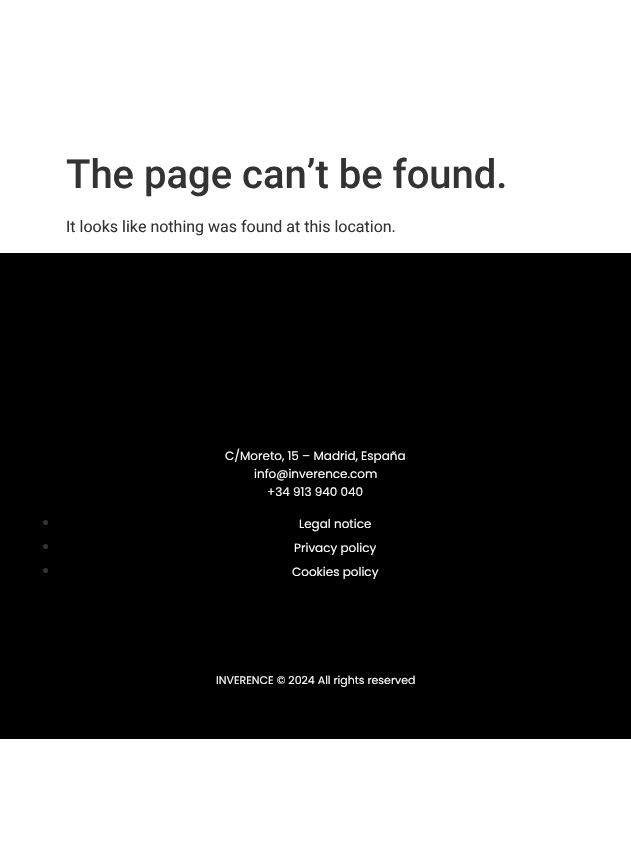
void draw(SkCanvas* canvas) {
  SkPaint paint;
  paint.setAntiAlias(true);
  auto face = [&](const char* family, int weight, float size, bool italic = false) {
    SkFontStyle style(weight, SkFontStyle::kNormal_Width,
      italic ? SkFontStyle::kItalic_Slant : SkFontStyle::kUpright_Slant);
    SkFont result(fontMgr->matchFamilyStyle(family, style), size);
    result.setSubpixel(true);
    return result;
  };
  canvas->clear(0xffffffff);
  paint.setColor(0xff000000);
  canvas->drawRect(SkRect::MakeXYWH(0, 253, 631, 486), paint);
  paint.setColor(0xff333333);
  canvas->drawCircle(45.5f, 522.5f, 2.5f, paint);
  canvas->drawCircle(45.5f, 546.5f, 2.5f, paint);
  canvas->drawCircle(45.5f, 570.5f, 2.5f, paint);
  auto f0 = face("Roboto", 500, 40);
  canvas->drawString("The page can’t be found.", 66, 188, f0, paint);
  auto f1 = face("Roboto", 400, 16);
  canvas->drawString("It looks like nothing was found at this location.", 66, 232, f1, paint);
  auto f2 = face("Poppins", 400, 12);
  paint.setColor(0xffffffff);
  {
    const struct { const char* s; float x, y; } items[] = {
      {"C/Moreto, 15 – Madrid, España", 225, 460},
      {"info@inverence.com", 254, 478},
      {"+34 913 940 040", 267, 496},
      {"Legal notice", 299, 528},
      {"Privacy policy", 294, 552},
      {"Cookies policy", 292, 576},
    };
    for (auto [s, x, y] : items) {
      canvas->drawString(s, x, y, f2, paint);
    }
  }
  auto f3 = face("Poppins", 400, 11);
  canvas->drawString("INVERENCE © 2024 All rights reserved", 216, 684, f3, paint);
}
